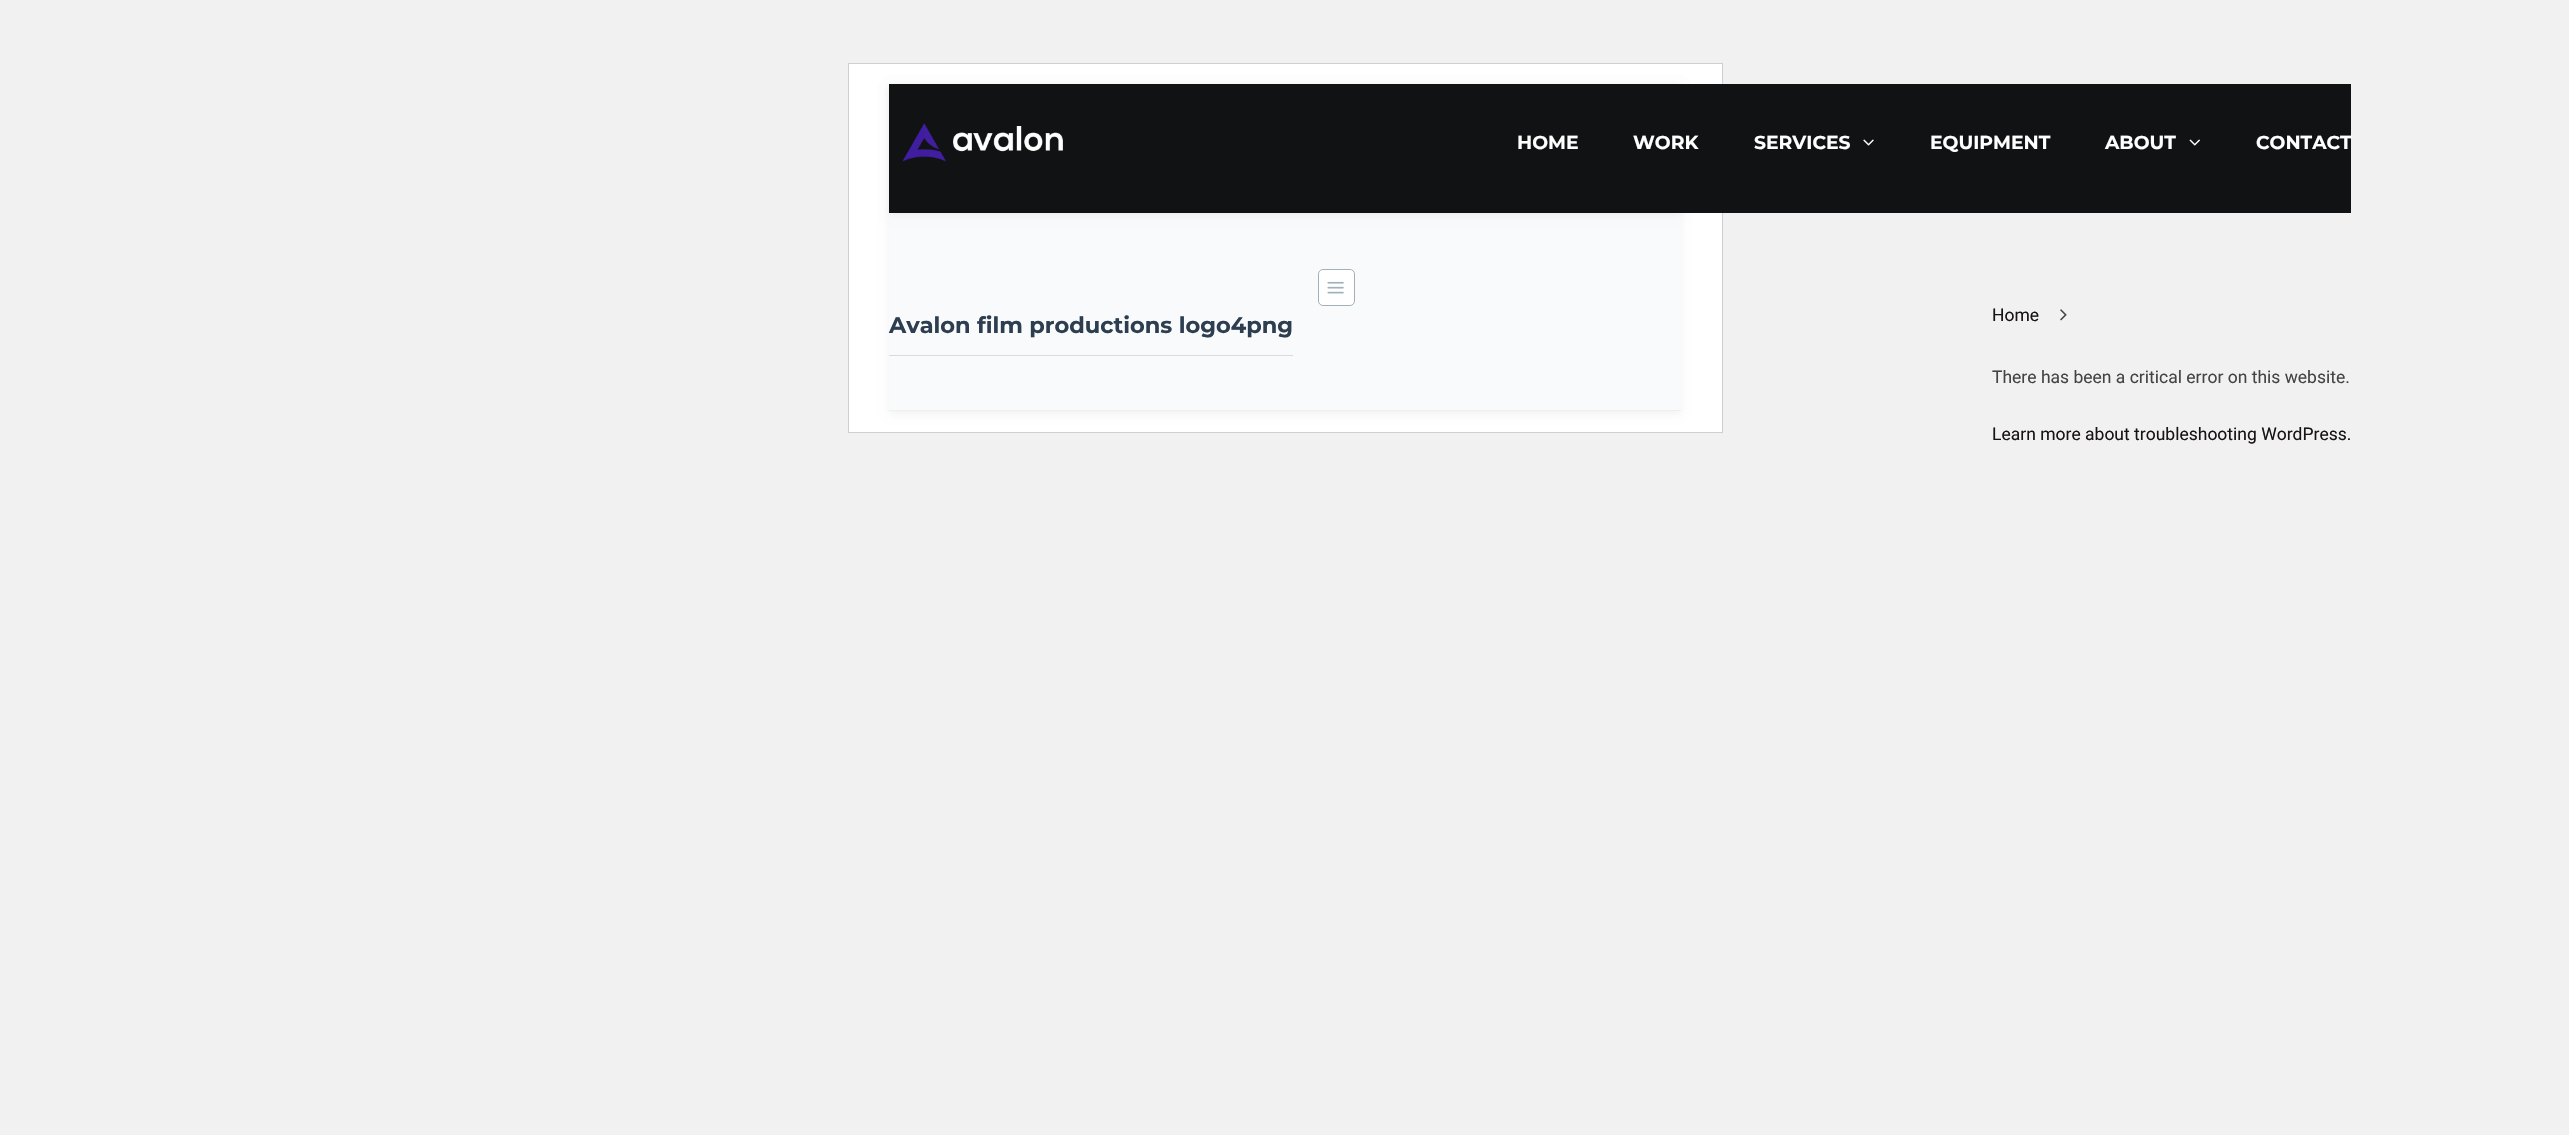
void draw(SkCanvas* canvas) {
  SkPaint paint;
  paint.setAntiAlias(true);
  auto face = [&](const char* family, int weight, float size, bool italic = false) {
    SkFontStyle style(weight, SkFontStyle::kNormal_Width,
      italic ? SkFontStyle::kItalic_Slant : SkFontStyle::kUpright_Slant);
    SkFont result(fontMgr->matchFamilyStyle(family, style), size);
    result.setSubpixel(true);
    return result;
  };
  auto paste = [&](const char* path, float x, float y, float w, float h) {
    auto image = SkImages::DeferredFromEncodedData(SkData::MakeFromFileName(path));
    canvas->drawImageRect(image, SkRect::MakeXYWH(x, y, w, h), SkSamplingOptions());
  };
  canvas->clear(0xfff1f1f1);
  paint.setColor(0xffffffff);
  canvas->drawRect(SkRect::MakeXYWH(848.5f, 63.5f, 874, 369), paint);
  paint.setStroke(true);
  paint.setStrokeWidth(1);
  paint.setColor(0xffccd0d4);
  canvas->drawRect(SkRect::MakeXYWH(848.5f, 63.5f, 874, 369), paint);
  paint.setStroke(false);
  paint.setColor(0x0d000000);
  paint.setMaskFilter(SkMaskFilter::MakeBlur(kNormal_SkBlurStyle, 4));
  canvas->drawRect(SkRect::MakeXYWH(889, 86, 792, 328), paint);
  paint.setMaskFilter(nullptr);
  paint.setColor(0xfff9fafb);
  canvas->drawRect(SkRect::MakeXYWH(889, 213, 792, 197), paint);
  paint.setColor(0x0d000000);
  paint.setMaskFilter(SkMaskFilter::MakeBlur(kNormal_SkBlurStyle, 4));
  canvas->drawRect(SkRect::MakeXYWH(889, 86, 792, 129), paint);
  paint.setMaskFilter(nullptr);
  paint.setColor(0xff111214);
  canvas->drawRect(SkRect::MakeXYWH(889, 84, 1462, 129), paint);
  paste("img/1.png", 902, 123, 161, 39);
  paste("img/2.png", 1863, 139, 11, 7);
  paste("img/3.png", 2189, 139, 11, 7);
  paint.setColor(0xffecf0f1);
  canvas->drawRect(SkRect::MakeXYWH(889, 410, 792, 1), paint);
  paint.setColor(0xffffffff);
  canvas->drawRoundRect(SkRect::MakeXYWH(1318.5f, 269.5f, 36, 36), 4.5f, 4.5f, paint);
  paint.setStroke(true);
  paint.setColor(0xffa1b1bc);
  canvas->drawRoundRect(SkRect::MakeXYWH(1318.5f, 269.5f, 36, 36), 4.5f, 4.5f, paint);
  paste("img/4.png", 1327, 281, 17, 13);
  paint.setStroke(false);
  paint.setColor(0xffdadada);
  canvas->drawRect(SkRect::MakeXYWH(889, 355, 404, 1), paint);
  paste("img/5.png", 2060, 309, 7, 12);
  auto f0 = face("Montserrat", 700, 18.75f);
  paint.setColor(0xffffffff);
  {
    const struct { const char* s; float x, y; } items[] = {
      {"HOME", 1517, 149},
      {"WORK", 1633, 149},
      {"SERVICES", 1754, 149},
      {"EQUIPMENT", 1930, 149},
      {"ABOUT", 2105, 149},
      {"CONTACT", 2256, 149},
    };
    for (auto [s, x, y] : items) {
      canvas->drawString(s, x, y, f0, paint);
    }
  }
  auto f1 = face("Montserrat", 700, 22.5f);
  paint.setColor(0xff2c3e50);
  canvas->drawString("Avalon film productions logo4png", 889, 333, f1, paint);
  auto f2 = face("Roboto", 400, 17.5f);
  paint.setColor(0xff191414);
  canvas->drawString("Home", 1992, 321, f2, paint);
  paint.setColor(0xff444444);
  canvas->drawString("There has been a critical error on this website.", 1992, 383, f2, paint);
  paint.setColor(0xff191414);
  canvas->drawString("Learn more about troubleshooting WordPress.", 1992, 440, f2, paint);
}
